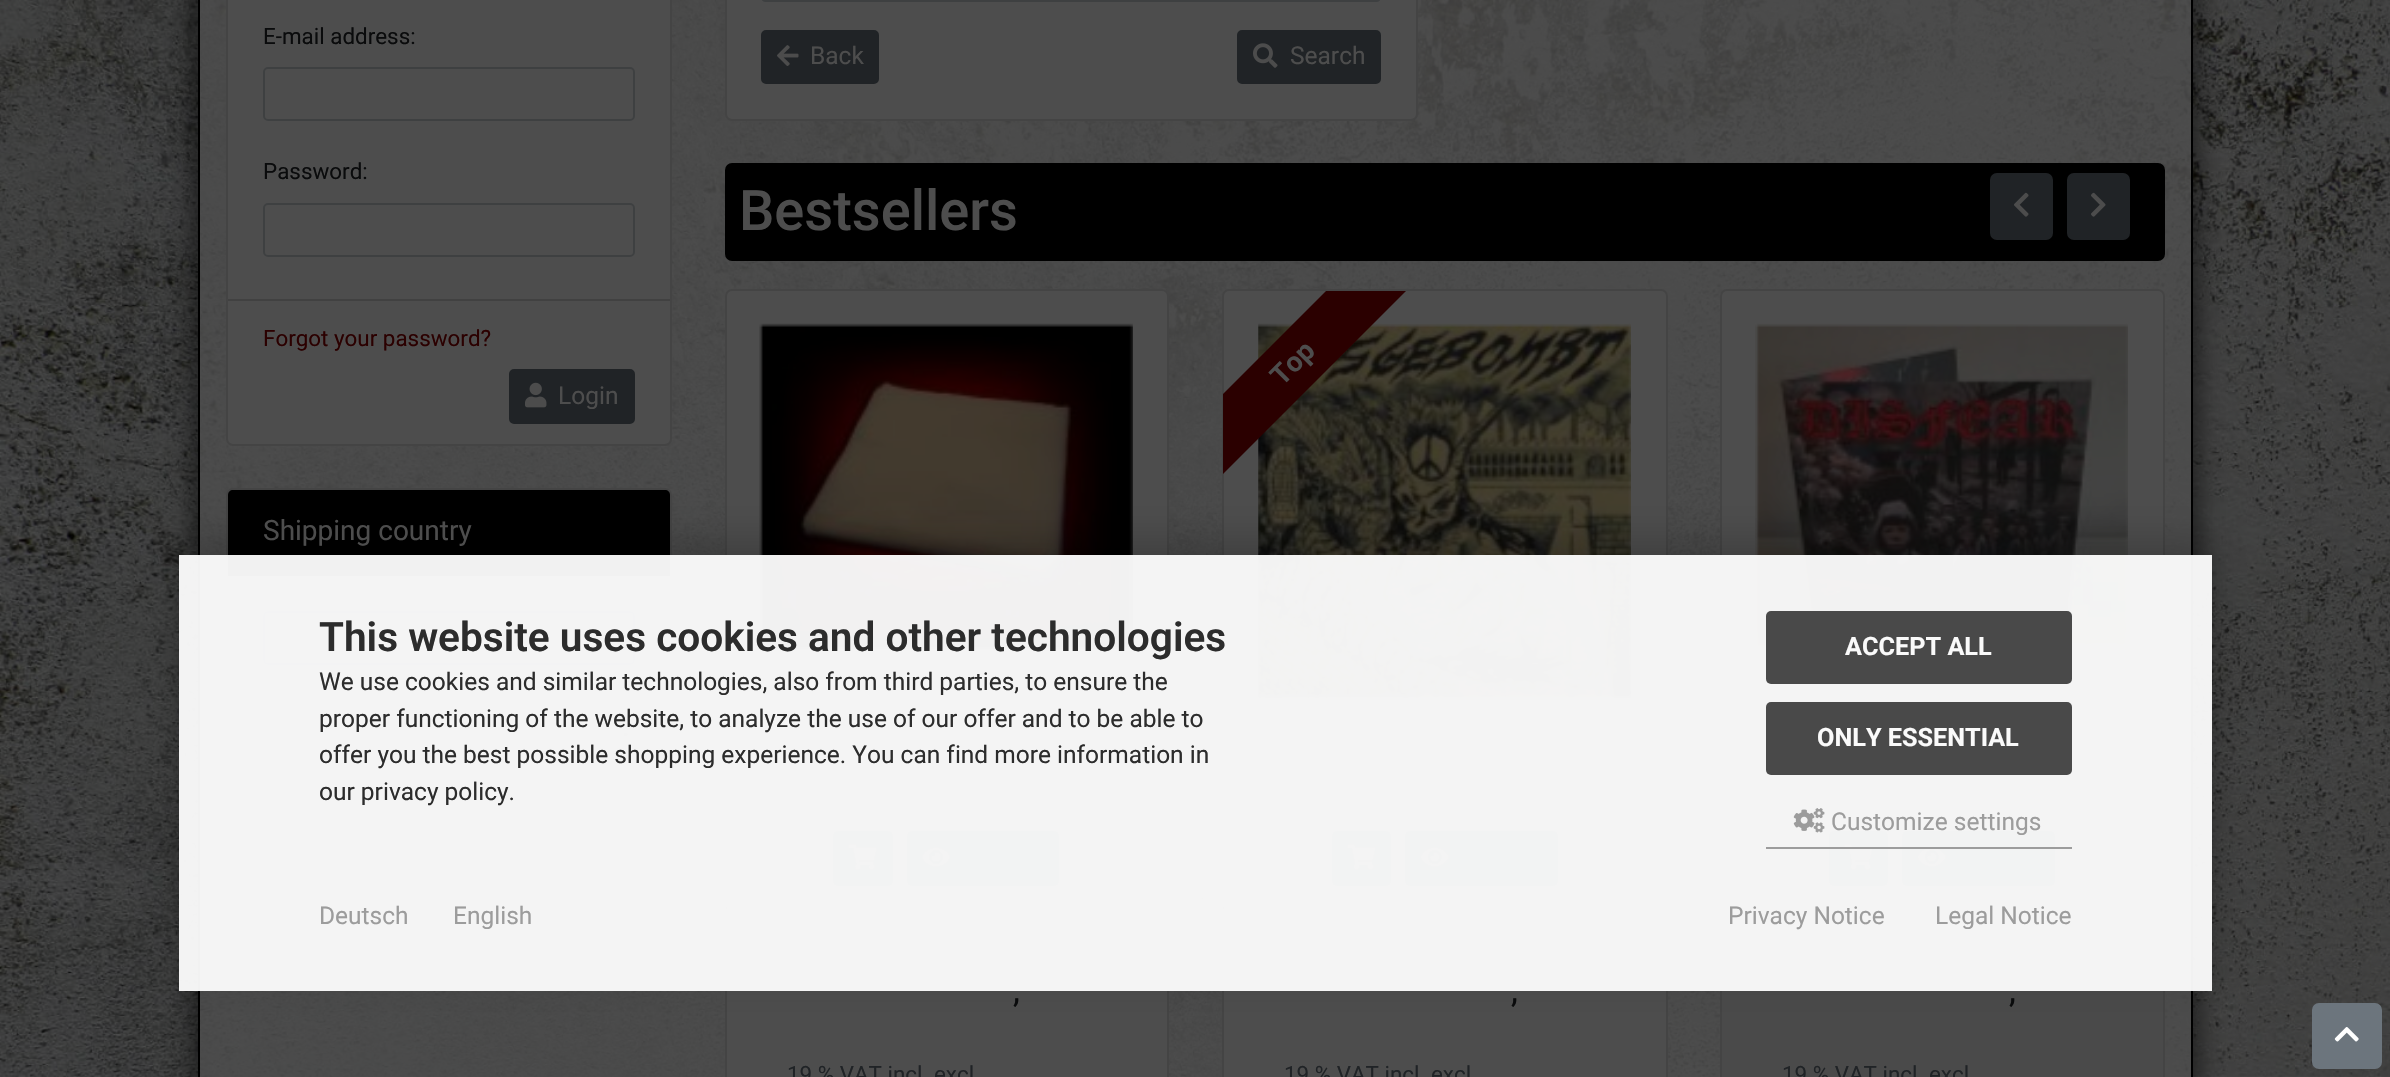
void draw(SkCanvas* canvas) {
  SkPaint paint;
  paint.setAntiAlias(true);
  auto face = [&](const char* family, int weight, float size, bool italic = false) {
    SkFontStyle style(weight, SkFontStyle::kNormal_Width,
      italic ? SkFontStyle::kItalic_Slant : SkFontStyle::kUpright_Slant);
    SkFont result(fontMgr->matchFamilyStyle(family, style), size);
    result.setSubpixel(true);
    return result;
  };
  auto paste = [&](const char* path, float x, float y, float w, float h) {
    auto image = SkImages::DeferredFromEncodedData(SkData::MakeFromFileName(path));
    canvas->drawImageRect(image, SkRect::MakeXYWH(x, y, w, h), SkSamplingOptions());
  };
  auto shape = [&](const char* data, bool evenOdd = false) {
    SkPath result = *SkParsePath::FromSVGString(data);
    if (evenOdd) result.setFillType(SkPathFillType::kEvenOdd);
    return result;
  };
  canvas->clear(0xffffffff);
  paste("img/1.png", 0, 0, 2390, 1077);
  canvas->save();
  canvas->clipPath(shape("M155 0H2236V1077H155ZM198-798H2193V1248H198Z", true), true);
  paint.setColor(0x80000000);
  paint.setMaskFilter(SkMaskFilter::MakeBlur(kNormal_SkBlurStyle, 11.5f));
  canvas->drawRect(SkRect::MakeXYWH(191, -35, 2009, 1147), paint);
  paint.setMaskFilter(nullptr);
  canvas->restore();
  {
    const struct { float x, y, w, h; SkColor color; } items[] = {
      {200, 0, 1991, 1077, 0xcc4d4d4d},
      {2191, 0, 2, 1077, 0xff000000},
      {198, 0, 2, 1077, 0xff000000},
    };
    for (auto [x, y, w, h, color] : items) {
      paint.setColor(color);
      canvas->drawRect(SkRect::MakeXYWH(x, y, w, h), paint);
    }
  }
  paint.setColor(0xff4d4d4d);
  canvas->drawRoundRect(SkRect::MakeXYWH(226, -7, 446, 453), 7, 7, paint);
  paint.setStroke(true);
  paint.setStrokeWidth(2);
  paint.setColor(0x1f000000);
  canvas->drawRoundRect(SkRect::MakeXYWH(227, -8, 444, 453), 6, 6, paint);
  paint.setColor(0xff3e4041);
  canvas->drawRoundRect(SkRect::MakeXYWH(264, 68, 370, 52), 4, 4, paint);
  canvas->drawRoundRect(SkRect::MakeXYWH(264, 204, 370, 52), 4, 4, paint);
  paint.setStroke(false);
  paint.setColor(0xff414141);
  canvas->drawRect(SkRect::MakeXYWH(228, 299, 442, 2), paint);
  paint.setColor(0xff202326);
  canvas->drawRoundRect(SkRect::MakeXYWH(510, 370, 124, 53), 4, 4, paint);
  paint.setStroke(true);
  canvas->drawRoundRect(SkRect::MakeXYWH(510, 370, 124, 53), 4, 4, paint);
  paste("img/2.png", 525, 382, 22, 26);
  paint.setStroke(false);
  paint.setColor(0xff4d4d4d);
  canvas->drawRoundRect(SkRect::MakeXYWH(226, 488, 446, 214), 7, 7, paint);
  paint.setStroke(true);
  paint.setColor(0x1f000000);
  canvas->drawRoundRect(SkRect::MakeXYWH(227, 489, 444, 212), 6, 6, paint);
  paint.setStroke(false);
  paint.setColor(0xff000000);
  canvas->drawPath(shape("M233 490H665C668 490 670 492 670 495V576H228V495C228 492 230 490 233 490Z"), paint);
  paint.setStroke(true);
  paint.setColor(0xff3e4041);
  canvas->drawRoundRect(SkRect::MakeXYWH(264, 612, 370, 52), 4, 4, paint);
  paint.setStrokeWidth(3.5f);
  paint.setColor(0xff16181a);
  canvas->drawPath(shape("M611.5 634L618.5 641L625.5 634"), paint);
  paint.setStroke(false);
  paint.setColor(0xff4d4d4d);
  canvas->drawRoundRect(SkRect::MakeXYWH(725, -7, 693, 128), 7, 7, paint);
  paint.setStroke(true);
  paint.setStrokeWidth(2);
  paint.setColor(0x1f000000);
  canvas->drawRoundRect(SkRect::MakeXYWH(726, -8, 691, 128), 6, 6, paint);
  paint.setColor(0xff3e4041);
  canvas->drawRoundRect(SkRect::MakeXYWH(762, -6, 618, 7), 4, 4, paint);
  paint.setStroke(false);
  paint.setColor(0xff202326);
  canvas->drawRoundRect(SkRect::MakeXYWH(762, 31, 116, 52), 4, 4, paint);
  paint.setStroke(true);
  canvas->drawRoundRect(SkRect::MakeXYWH(762, 31, 116, 52), 4, 4, paint);
  paste("img/3.png", 777, 45, 22, 21);
  paint.setStroke(false);
  canvas->drawRoundRect(SkRect::MakeXYWH(1238, 31, 142, 52), 4, 4, paint);
  paint.setStroke(true);
  canvas->drawRoundRect(SkRect::MakeXYWH(1238, 31, 142, 52), 4, 4, paint);
  paste("img/4.png", 1253, 43, 25, 25);
  paint.setStroke(false);
  paint.setColor(0xff000000);
  canvas->drawRoundRect(SkRect::MakeXYWH(725, 163, 1440, 98), 7, 7, paint);
  paint.setColor(0xff202326);
  canvas->drawRoundRect(SkRect::MakeXYWH(1991, 174, 61, 65), 6, 6, paint);
  paint.setStroke(true);
  canvas->drawRoundRect(SkRect::MakeXYWH(1991, 174, 61, 65), 6, 6, paint);
  paste("img/5.png", 2014, 192, 15, 25);
  paint.setStroke(false);
  canvas->drawRoundRect(SkRect::MakeXYWH(2068, 174, 61, 65), 6, 6, paint);
  paint.setStroke(true);
  canvas->drawRoundRect(SkRect::MakeXYWH(2068, 174, 61, 65), 6, 6, paint);
  paste("img/6.png", 2091, 192, 15, 25);
  paint.setStroke(false);
  paint.setColor(0xff4d4d4d);
  canvas->drawRoundRect(SkRect::MakeXYWH(725, 289, 444, 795), 7, 7, paint);
  paint.setStroke(true);
  paint.setColor(0x1f000000);
  canvas->drawRoundRect(SkRect::MakeXYWH(726, 290, 442, 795), 6, 6, paint);
  paste("img/7.png", 759, 323, 374, 327);
  paint.setStroke(false);
  paint.setColor(0xff202326);
  canvas->drawRoundRect(SkRect::MakeXYWH(834, 832, 58, 53), 4, 4, paint);
  paint.setStroke(true);
  canvas->drawRoundRect(SkRect::MakeXYWH(834, 832, 58, 53), 4, 4, paint);
  paste("img/8.png", 848, 844, 29, 26);
  paint.setStroke(false);
  canvas->drawRoundRect(SkRect::MakeXYWH(908, 832, 150, 53), 4, 4, paint);
  paint.setStroke(true);
  canvas->drawRoundRect(SkRect::MakeXYWH(908, 832, 150, 53), 4, 4, paint);
  paste("img/9.png", 922, 847, 28, 20);
  paint.setStroke(false);
  paint.setColor(0x1f000000);
  canvas->drawRect(SkRect::MakeXYWH(726, 907, 441, 2), paint);
  paint.setColor(0xff4d4d4d);
  canvas->drawRoundRect(SkRect::MakeXYWH(1222, 289, 446, 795), 7, 7, paint);
  paint.setStroke(true);
  paint.setColor(0x1f000000);
  canvas->drawRoundRect(SkRect::MakeXYWH(1223, 290, 444, 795), 6, 6, paint);
  paste("img/10.png", 1258, 323, 373, 375);
  paint.setStroke(false);
  paint.setColor(0xff2b0000);
  canvas->drawPath(shape("M1406 291L1223 474V394L1326 291Z"), paint);
  paint.setColor(0xff202326);
  canvas->drawRoundRect(SkRect::MakeXYWH(1333, 832, 57, 53), 4, 4, paint);
  paint.setStroke(true);
  canvas->drawRoundRect(SkRect::MakeXYWH(1333, 832, 57, 53), 4, 4, paint);
  paste("img/11.png", 1347, 844, 28, 26);
  paint.setStroke(false);
  canvas->drawRoundRect(SkRect::MakeXYWH(1406, 832, 151, 53), 4, 4, paint);
  paint.setStroke(true);
  canvas->drawRoundRect(SkRect::MakeXYWH(1406, 832, 151, 53), 4, 4, paint);
  paste("img/12.png", 1421, 847, 28, 20);
  paint.setStroke(false);
  paint.setColor(0x1f000000);
  canvas->drawRect(SkRect::MakeXYWH(1223, 907, 443, 2), paint);
  paint.setColor(0xff4d4d4d);
  canvas->drawRoundRect(SkRect::MakeXYWH(1720, 289, 445, 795), 7, 7, paint);
  paint.setStroke(true);
  paint.setColor(0x1f000000);
  canvas->drawRoundRect(SkRect::MakeXYWH(1721, 290, 443, 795), 6, 6, paint);
  paste("img/13.png", 1755, 323, 373, 324);
  paint.setStroke(false);
  paint.setColor(0xff202326);
  canvas->drawRoundRect(SkRect::MakeXYWH(1830, 832, 57, 53), 4, 4, paint);
  paint.setStroke(true);
  canvas->drawRoundRect(SkRect::MakeXYWH(1830, 832, 57, 53), 4, 4, paint);
  paste("img/11.png", 1844, 844, 28, 26);
  paint.setStroke(false);
  canvas->drawRoundRect(SkRect::MakeXYWH(1903, 832, 151, 53), 4, 4, paint);
  paint.setStroke(true);
  canvas->drawRoundRect(SkRect::MakeXYWH(1903, 832, 151, 53), 4, 4, paint);
  paste("img/14.png", 1918, 849, 28, 18);
  paint.setStroke(false);
  paint.setColor(0xff4a4a4a);
  canvas->drawRect(SkRect::MakeXYWH(1722, 909, 441, 168), paint);
  paint.setColor(0xff414141);
  canvas->drawRect(SkRect::MakeXYWH(1722, 907, 441, 2), paint);
  paint.setColor(0xff6c757d);
  canvas->drawRoundRect(SkRect::MakeXYWH(2313, 1004, 68, 64), 6, 6, paint);
  paint.setStroke(true);
  canvas->drawRoundRect(SkRect::MakeXYWH(2313, 1004, 68, 64), 6, 6, paint);
  paste("img/15.png", 2334, 1027, 25, 15);
  canvas->save();
  canvas->clipPath(shape("M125 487H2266V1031H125ZM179 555H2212V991H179Z", true), true);
  paint.setStroke(false);
  paint.setColor(0x30000000);
  paint.setMaskFilter(SkMaskFilter::MakeBlur(kNormal_SkBlurStyle, 17.5f));
  canvas->drawRect(SkRect::MakeXYWH(179, 541, 2033, 436), paint);
  paint.setMaskFilter(nullptr);
  canvas->restore();
  paint.setColor(0xf7f9f9f9);
  canvas->drawRect(SkRect::MakeXYWH(179, 555, 2033, 436), paint);
  paint.setColor(0xff494949);
  canvas->drawRoundRect(SkRect::MakeXYWH(1766, 611, 306, 73), 5, 5, paint);
  canvas->drawRoundRect(SkRect::MakeXYWH(1766, 702, 306, 73), 5, 5, paint);
  paint.setColor(0xff9c9c9c);
  canvas->drawRect(SkRect::MakeXYWH(1766, 847, 306, 2), paint);
  paste("img/16.png", 1793, 808, 32, 25);
  auto f0 = face("Roboto", 400, 22.4f);
  paint.setColor(0xff0a0b0c);
  canvas->drawString("E-mail address:", 263, 44, f0, paint);
  canvas->drawString("Password:", 263, 179, f0, paint);
  paint.setColor(0xff2b0000);
  canvas->drawString("Forgot your password?", 263, 346, f0, paint);
  auto f1 = face("Roboto", 400, 24.5f);
  paint.setColor(0xff4d4d4d);
  canvas->drawString("Login", 558, 404, f1, paint);
  auto f2 = face("Roboto", 400, 28);
  canvas->drawString("Shipping country", 263, 540, f2, paint);
  canvas->drawString("Back", 810, 64, f1, paint);
  canvas->drawString("Search", 1290, 64, f1, paint);
  auto f3 = face("Roboto", 500, 56);
  canvas->drawString("Bestsellers", 739, 230, f3, paint);
  auto f4 = face("Roboto", 400, 35);
  paint.setColor(0xff0a0b0c);
  canvas->drawString(",", 1013, 1002, f4, paint);
  paint.setColor(0xff202326);
  canvas->drawString("19 % VAT incl. excl", 787, 1082, f0, paint);
  auto f5 = face("Roboto", 700, 28);
  paint.setColor(0xff4d4d4d);
  canvas->save();
  canvas->rotate(-45, 1282, 387);
  canvas->drawString("Top", 1282, 387, f5, paint);
  canvas->restore();
  paint.setColor(0xff0a0b0c);
  canvas->drawString(",", 1511, 1002, f4, paint);
  paint.setColor(0xff202326);
  canvas->drawString("19 % VAT incl. excl", 1284, 1082, f0, paint);
  paint.setColor(0xff0a0b0c);
  canvas->drawString(",", 2009, 1002, f4, paint);
  paint.setColor(0xff202326);
  canvas->drawString("19 % VAT incl. excl", 1782, 1082, f0, paint);
  auto f6 = face("Roboto", 600, 40.6f);
  paint.setColor(0xff2c2c2c);
  canvas->drawString("This website uses cookies and other technologies", 319, 651, f6, paint);
  {
    const struct { const char* s; float x, y; } items[] = {
      {"We use cookies and similar technologies, also from third parties, to ensure the", 319, 690},
      {"proper functioning of the website, to analyze the use of our offer and to be able to", 319, 727},
      {"offer you the best possible shopping experience. You can find more information in", 319, 763},
      {"our privacy policy.", 319, 800},
    };
    for (auto [s, x, y] : items) {
      canvas->drawString(s, x, y, f1, paint);
    }
  }
  auto f7 = face("Roboto", 700, 25.25f);
  paint.setColor(0xfffafafa);
  canvas->drawString("ACCEPT ALL", 1845, 655, f7, paint);
  canvas->drawString("ONLY ESSENTIAL", 1817, 746, f7, paint);
  paint.setColor(0xff9c9c9c);
  {
    const struct { const char* s; float x, y; } items[] = {
      {"Customize settings", 1831, 830},
      {"Deutsch", 319, 924},
      {"English", 453, 924},
      {"Privacy Notice", 1728, 924},
      {"Legal Notice", 1935, 924},
    };
    for (auto [s, x, y] : items) {
      canvas->drawString(s, x, y, f1, paint);
    }
  }
}
